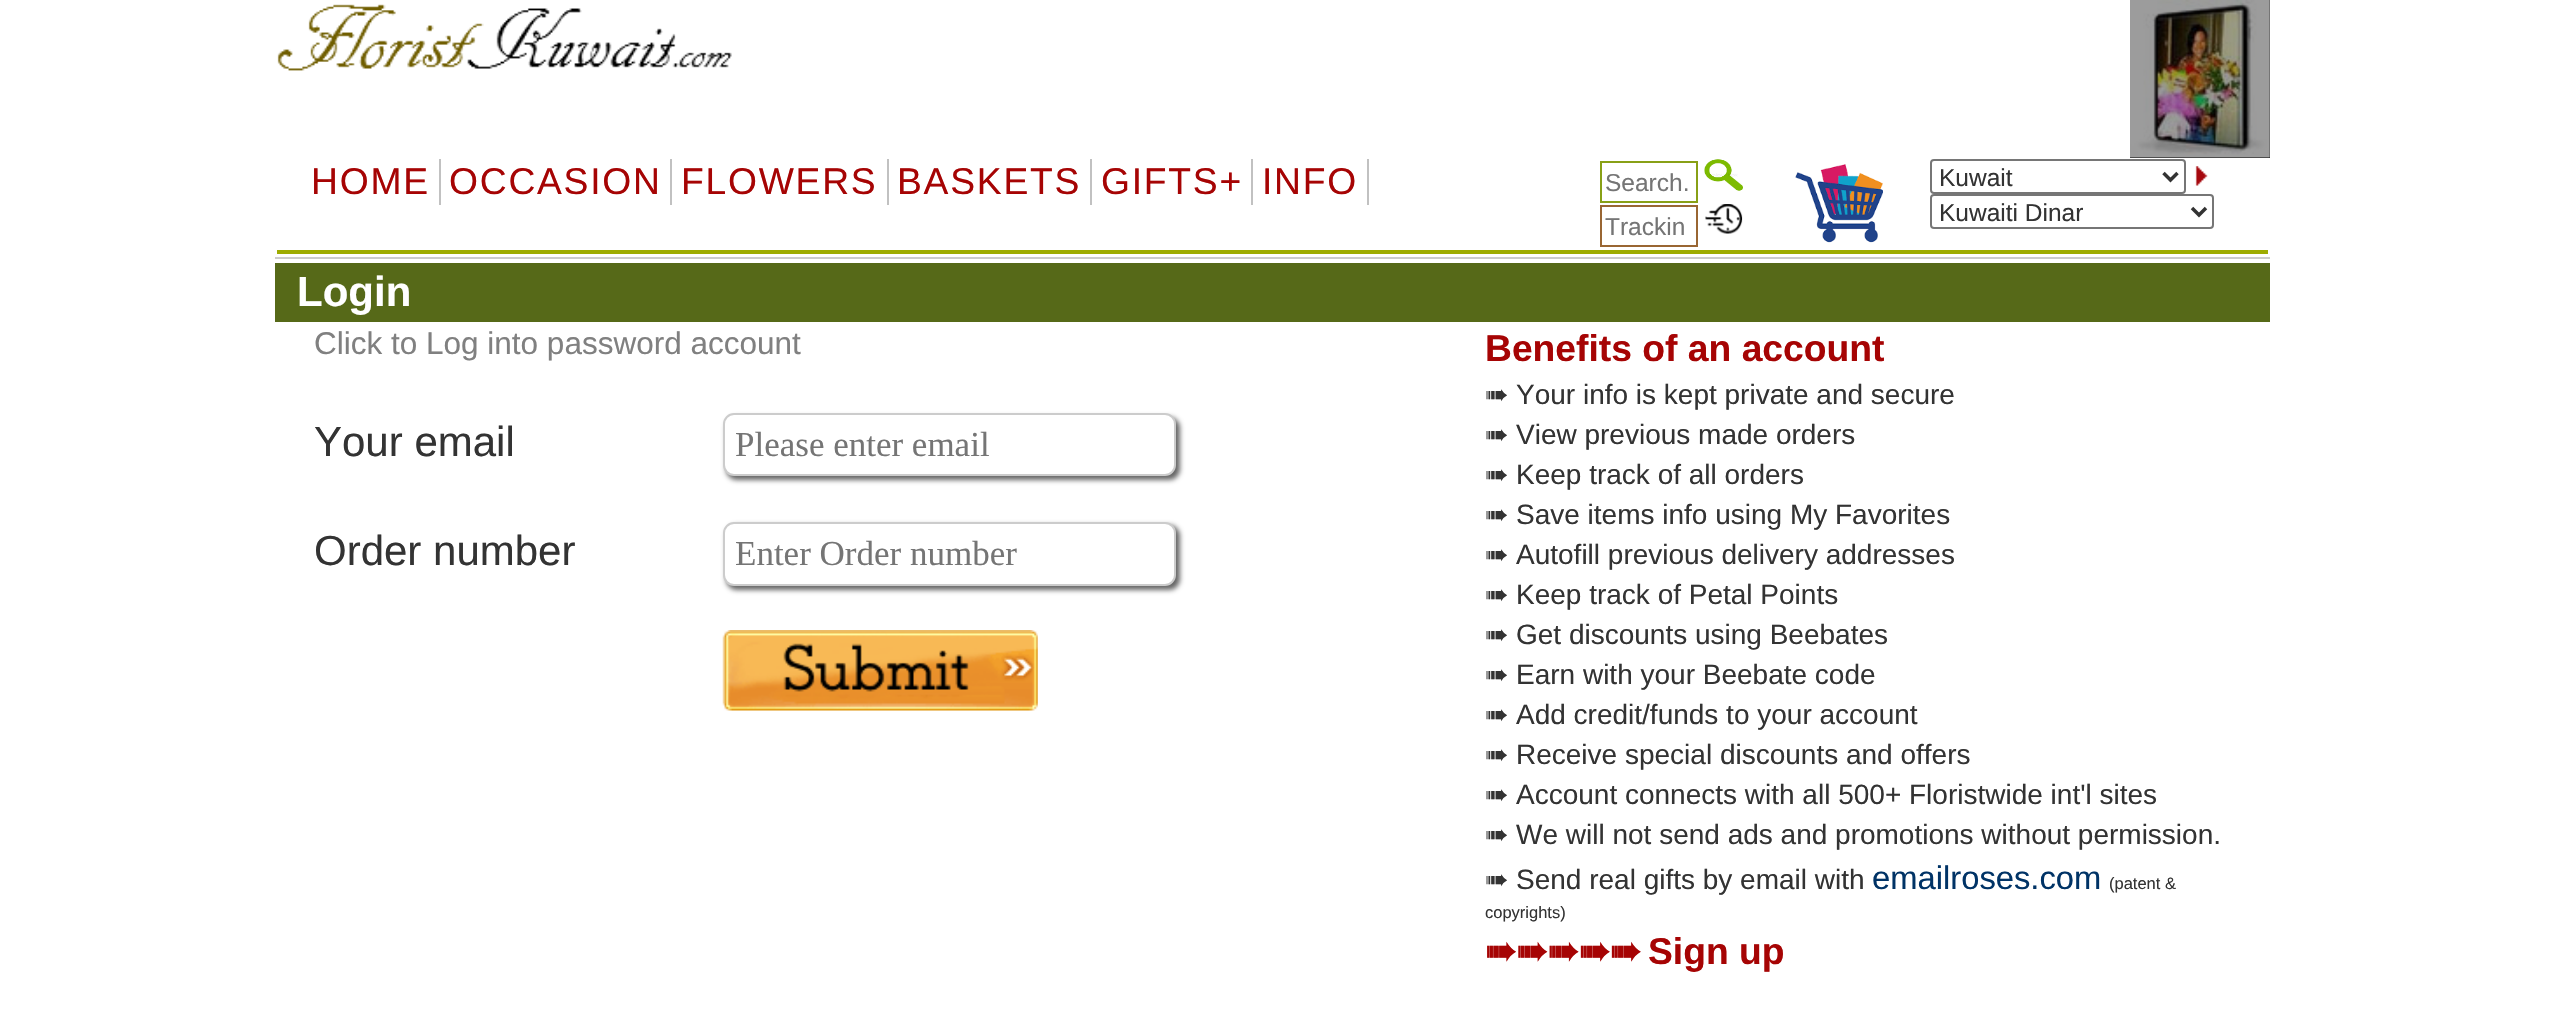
void draw(SkCanvas* canvas) {
  SkPaint paint;
  paint.setAntiAlias(true);
  auto face = [&](const char* family, int weight, float size, bool italic = false) {
    SkFontStyle style(weight, SkFontStyle::kNormal_Width,
      italic ? SkFontStyle::kItalic_Slant : SkFontStyle::kUpright_Slant);
    SkFont result(fontMgr->matchFamilyStyle(family, style), size);
    result.setSubpixel(true);
    return result;
  };
  auto writeSpaced = [&](const char* s, float x, float y, const SkFont& font, const SkPaint& ink, float letter, float word) {
    std::vector<SkGlyphID> glyphs(font.countText(s, strlen(s), SkTextEncoding::kUTF8));
    std::vector<float> xs(glyphs.size());
    font.textToGlyphs(s, strlen(s), SkTextEncoding::kUTF8, glyphs);
    font.getXPos(glyphs, xs, x);
    float extra = 0;
    for (size_t i = 0; i < glyphs.size(); i++) {
      xs[i] += extra;
      extra += letter + word * (glyphs[i] == font.unicharToGlyph(' '));
    }
    canvas->drawTextBlob(SkTextBlob::MakeFromPosHGlyphs(glyphs, xs, y, font), 0, 0, ink);
  };
  auto paste = [&](const char* path, float x, float y, float w, float h) {
    auto image = SkImages::DeferredFromEncodedData(SkData::MakeFromFileName(path));
    canvas->drawImageRect(image, SkRect::MakeXYWH(x, y, w, h), SkSamplingOptions());
  };
  auto shape = [&](const char* data, bool evenOdd = false) {
    SkPath result = *SkParsePath::FromSVGString(data);
    if (evenOdd) result.setFillType(SkPathFillType::kEvenOdd);
    return result;
  };
  canvas->clear(0xffffffff);
  paste("img/1.png", 277, 4, 455, 67);
  paint.setColor(0xff000000);
  canvas->drawRect(SkRect::MakeXYWH(2130, 0, 140, 158), paint);
  paste("img/2.png", 2130, 0, 140, 158);
  {
    const struct { float x, y, w, h; SkColor color; } items[] = {
      {277, 250, 1991, 4, 0xff9eac01},
      {439, 159, 2, 46, 0xffc1c1c1},
      {670, 159, 2, 46, 0xffc1c1c1},
      {887, 159, 2, 46, 0xffc1c1c1},
      {1090, 159, 2, 46, 0xffc1c1c1},
      {1251, 159, 2, 46, 0xffc1c1c1},
      {1367, 159, 2, 46, 0xffc1c1c1},
    };
    for (auto [x, y, w, h, color] : items) {
      paint.setColor(color);
      canvas->drawRect(SkRect::MakeXYWH(x, y, w, h), paint);
    }
  }
  paint.setStroke(true);
  paint.setStrokeWidth(2);
  paint.setColor(0xff88a016);
  canvas->drawRect(SkRect::MakeXYWH(1601, 162, 96, 40), paint);
  paste("img/3.png", 1704, 159, 39, 32);
  paint.setColor(0xff996633);
  canvas->drawRect(SkRect::MakeXYWH(1601, 206, 96, 40), paint);
  paste("img/4.png", 1705, 204, 38, 30);
  paste("img/5.png", 1795, 164, 88, 79);
  paint.setColor(0xff767676);
  canvas->drawRoundRect(SkRect::MakeXYWH(1931, 160, 254, 33), 3, 3, paint);
  paint.setStrokeWidth(3.5f);
  paint.setColor(0xff333333);
  canvas->drawPath(shape("M2163.5 173L2170.5 180L2177.5 173"), paint);
  paste("img/6.png", 2195, 166, 13, 20);
  paint.setStrokeWidth(2);
  paint.setColor(0xff767676);
  canvas->drawRoundRect(SkRect::MakeXYWH(1931, 195, 282, 33), 3, 3, paint);
  paint.setStrokeWidth(3.5f);
  paint.setColor(0xff333333);
  canvas->drawPath(shape("M2192 208L2199 215L2206 208"), paint);
  paint.setStroke(false);
  paint.setColor(0xffcccccc);
  canvas->drawRect(SkRect::MakeXYWH(275, 257, 1995, 2), paint);
  paint.setColor(0xff566918);
  canvas->drawRect(SkRect::MakeXYWH(275, 263, 1995, 59), paint);
  paint.setColor(0xff666666);
  paint.setMaskFilter(SkMaskFilter::MakeBlur(kNormal_SkBlurStyle, 2.5f));
  canvas->drawRoundRect(SkRect::MakeXYWH(726, 417, 454, 63), 11, 11, paint);
  paint.setMaskFilter(nullptr);
  paint.setColor(0xffffffff);
  canvas->drawRoundRect(SkRect::MakeXYWH(724, 414, 451, 61), 10, 10, paint);
  paint.setStroke(true);
  paint.setStrokeWidth(2);
  paint.setColor(0xffcccccc);
  canvas->drawRoundRect(SkRect::MakeXYWH(724, 414, 451, 61), 10, 10, paint);
  paint.setStroke(false);
  paint.setColor(0xff666666);
  paint.setMaskFilter(SkMaskFilter::MakeBlur(kNormal_SkBlurStyle, 2.5f));
  canvas->drawRoundRect(SkRect::MakeXYWH(726, 525, 454, 65), 11, 11, paint);
  paint.setMaskFilter(nullptr);
  paint.setColor(0xffffffff);
  canvas->drawRoundRect(SkRect::MakeXYWH(724, 523, 451, 62), 10, 10, paint);
  paint.setStroke(true);
  paint.setColor(0xffcccccc);
  canvas->drawRoundRect(SkRect::MakeXYWH(724, 523, 451, 62), 10, 10, paint);
  paste("img/7.png", 722, 630, 316, 81);
  auto f0 = face("Liberation Sans", 400, 37.25f);
  paint.setStroke(false);
  paint.setColor(0xffa60404);
  {
    const struct { const char* s; float x, y; } items[] = {
      {"HOME", 311, 194},
      {"OCCASION", 449, 194},
      {"FLOWERS", 681, 194},
      {"BASKETS", 897, 194},
      {"GIFTS+", 1101, 194},
      {"INFO", 1262, 194},
    };
    for (auto [s, x, y] : items) {
      writeSpaced(s, x, y, f0, paint, 1.75f, 0);
    }
  }
  auto f1 = face("Liberation Sans", 400, 24.5f);
  paint.setColor(0xff757575);
  canvas->drawString("Search.", 1605, 191, f1, paint);
  canvas->drawString("Trackin", 1605, 235, f1, paint);
  paint.setColor(0xff333333);
  canvas->drawString("Kuwait", 1939, 186, f1, paint);
  canvas->drawString("Kuwaiti Dinar", 1939, 221, f1, paint);
  auto f2 = face("Liberation Sans", 700, 42);
  paint.setColor(0xffffffff);
  canvas->drawString("Login", 297, 306, f2, paint);
  auto f3 = face("Liberation Sans", 400, 31.5f);
  paint.setColor(0xff808080);
  canvas->drawString("Click to Log into password account", 314, 354, f3, paint);
  auto f4 = face("Liberation Sans", 400, 42);
  paint.setColor(0xff333333);
  canvas->drawString("Your email", 314, 456, f4, paint);
  auto f5 = face("Liberation Serif", 400, 35);
  paint.setColor(0xff757575);
  canvas->drawString("Please enter email", 735, 456, f5, paint);
  paint.setColor(0xff333333);
  canvas->drawString("Order number", 314, 565, f4, paint);
  paint.setColor(0xff757575);
  canvas->drawString("Enter Order number", 735, 565, f5, paint);
  auto f6 = face("Liberation Sans", 700, 37.25f);
  paint.setColor(0xffa60404);
  canvas->drawString("Benefits of an account", 1485, 361, f6, paint);
  auto f7 = face("DejaVu Sans", 400, 28);
  paint.setColor(0xff333333);
  canvas->drawString("➠", 1485, 404, f7, paint);
  auto f8 = face("Liberation Sans", 400, 28);
  canvas->drawString("Your info is kept private and secure", 1516, 404, f8, paint);
  canvas->drawString("➠", 1485, 444, f7, paint);
  canvas->drawString("View previous made orders", 1516, 444, f8, paint);
  canvas->drawString("➠", 1485, 484, f7, paint);
  canvas->drawString("Keep track of all orders", 1516, 484, f8, paint);
  canvas->drawString("➠", 1485, 524, f7, paint);
  canvas->drawString("Save items info using My Favorites", 1516, 524, f8, paint);
  canvas->drawString("➠", 1485, 564, f7, paint);
  canvas->drawString("Autofill previous delivery addresses", 1516, 564, f8, paint);
  canvas->drawString("➠", 1485, 604, f7, paint);
  canvas->drawString("Keep track of Petal Points", 1516, 604, f8, paint);
  canvas->drawString("➠", 1485, 644, f7, paint);
  canvas->drawString("Get discounts using Beebates", 1516, 644, f8, paint);
  canvas->drawString("➠", 1485, 684, f7, paint);
  canvas->drawString("Earn with your Beebate code", 1516, 684, f8, paint);
  canvas->drawString("➠", 1485, 724, f7, paint);
  canvas->drawString("Add credit/funds to your account", 1516, 724, f8, paint);
  canvas->drawString("➠", 1485, 764, f7, paint);
  canvas->drawString("Receive special discounts and offers", 1516, 764, f8, paint);
  canvas->drawString("➠", 1485, 804, f7, paint);
  canvas->drawString("Account connects with all 500+ Floristwide int'l sites", 1516, 804, f8, paint);
  canvas->drawString("➠", 1485, 844, f7, paint);
  canvas->drawString("We will not send ads and promotions without permission.", 1516, 844, f8, paint);
  canvas->drawString("➠", 1485, 889, f7, paint);
  canvas->drawString("Send real gifts by email with", 1516, 889, f8, paint);
  auto f9 = face("Liberation Sans", 400, 32.75f);
  paint.setColor(0xff003366);
  canvas->drawString("emailroses.com", 1872, 889, f9, paint);
  auto f10 = face("Liberation Sans", 400, 16.5f);
  paint.setColor(0xff333333);
  canvas->drawString("(patent &", 2109, 889, f10, paint);
  canvas->drawString("copyrights)", 1485, 918, f10, paint);
  auto f11 = face("DejaVu Sans", 700, 37.25f);
  paint.setColor(0xffa60404);
  canvas->drawString("➠➠➠➠➠", 1485, 964, f11, paint);
  canvas->drawString("Sign up", 1648, 964, f6, paint);
}
